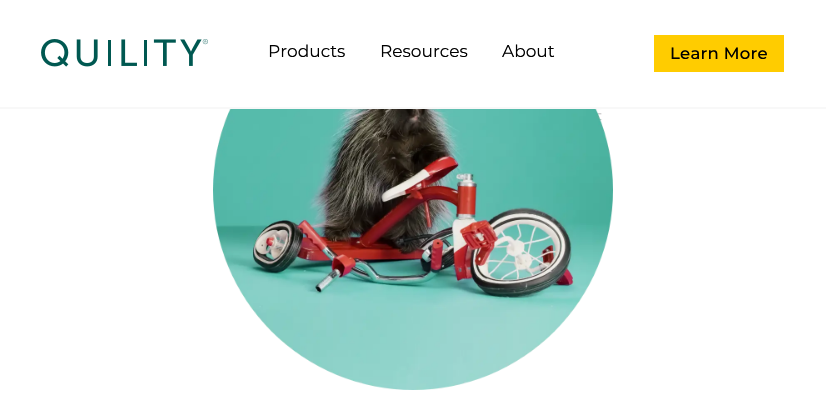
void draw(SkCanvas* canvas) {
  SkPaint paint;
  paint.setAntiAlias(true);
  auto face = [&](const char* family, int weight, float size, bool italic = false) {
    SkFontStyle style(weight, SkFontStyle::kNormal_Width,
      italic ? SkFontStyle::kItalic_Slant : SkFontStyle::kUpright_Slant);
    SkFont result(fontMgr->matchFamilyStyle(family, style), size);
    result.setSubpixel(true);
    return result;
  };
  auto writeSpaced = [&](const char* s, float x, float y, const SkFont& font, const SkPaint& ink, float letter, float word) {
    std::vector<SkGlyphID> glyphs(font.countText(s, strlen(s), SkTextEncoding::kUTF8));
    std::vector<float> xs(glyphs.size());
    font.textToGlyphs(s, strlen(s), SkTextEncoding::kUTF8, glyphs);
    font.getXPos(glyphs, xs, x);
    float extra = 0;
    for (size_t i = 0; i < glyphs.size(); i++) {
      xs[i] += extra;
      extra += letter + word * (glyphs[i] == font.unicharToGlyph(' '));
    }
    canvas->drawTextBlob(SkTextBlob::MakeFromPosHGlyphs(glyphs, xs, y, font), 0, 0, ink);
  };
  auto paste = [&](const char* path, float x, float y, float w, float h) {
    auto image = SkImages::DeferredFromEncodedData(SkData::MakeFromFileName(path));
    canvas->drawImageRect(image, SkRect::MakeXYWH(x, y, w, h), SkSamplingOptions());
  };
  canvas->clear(0xffffffff);
  paint.setColor(0xfff8f8f8);
  canvas->drawRect(SkRect::MakeXYWH(0, 107, 826, 2), paint);
  paste("img/1.png", 41, 39, 167, 28);
  paint.setColor(0xffffcc00);
  canvas->drawRect(SkRect::MakeXYWH(654, 35, 130, 37), paint);
  paste("img/2.png", 213, 109, 400, 281);
  auto f0 = face("Montserrat", 100, 17);
  paint.setColor(0xff000000);
  {
    const struct { const char* s; float x, y; } items[] = {
      {"Products", 268, 57},
      {"Resources", 380, 57},
      {"About", 502, 57},
    };
    for (auto [s, x, y] : items) {
      canvas->drawString(s, x, y, f0, paint);
    }
  }
  auto f1 = face("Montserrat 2", 100, 16.5f);
  writeSpaced("Learn More", 670, 59, f1, paint, 0.25f, 0);
}
